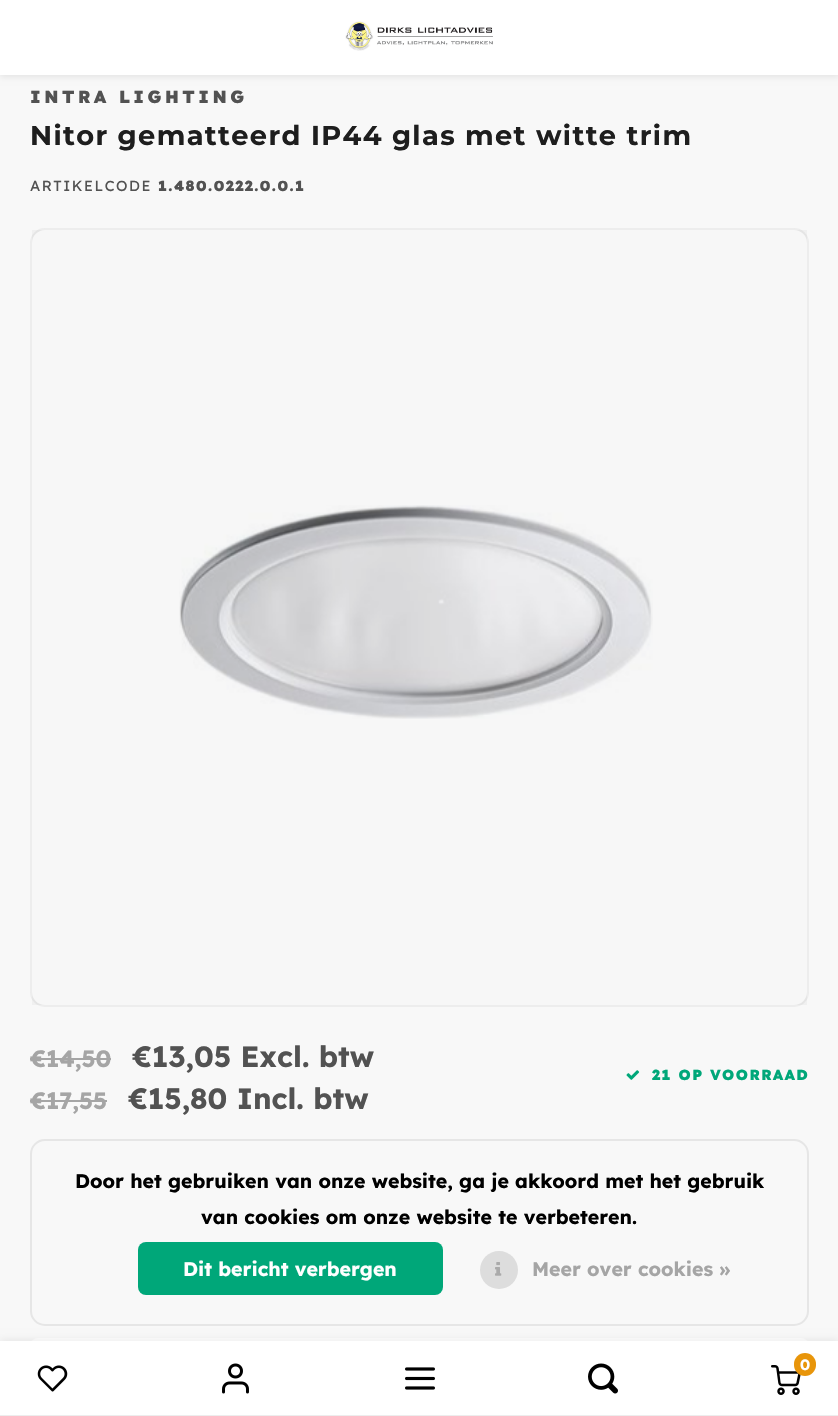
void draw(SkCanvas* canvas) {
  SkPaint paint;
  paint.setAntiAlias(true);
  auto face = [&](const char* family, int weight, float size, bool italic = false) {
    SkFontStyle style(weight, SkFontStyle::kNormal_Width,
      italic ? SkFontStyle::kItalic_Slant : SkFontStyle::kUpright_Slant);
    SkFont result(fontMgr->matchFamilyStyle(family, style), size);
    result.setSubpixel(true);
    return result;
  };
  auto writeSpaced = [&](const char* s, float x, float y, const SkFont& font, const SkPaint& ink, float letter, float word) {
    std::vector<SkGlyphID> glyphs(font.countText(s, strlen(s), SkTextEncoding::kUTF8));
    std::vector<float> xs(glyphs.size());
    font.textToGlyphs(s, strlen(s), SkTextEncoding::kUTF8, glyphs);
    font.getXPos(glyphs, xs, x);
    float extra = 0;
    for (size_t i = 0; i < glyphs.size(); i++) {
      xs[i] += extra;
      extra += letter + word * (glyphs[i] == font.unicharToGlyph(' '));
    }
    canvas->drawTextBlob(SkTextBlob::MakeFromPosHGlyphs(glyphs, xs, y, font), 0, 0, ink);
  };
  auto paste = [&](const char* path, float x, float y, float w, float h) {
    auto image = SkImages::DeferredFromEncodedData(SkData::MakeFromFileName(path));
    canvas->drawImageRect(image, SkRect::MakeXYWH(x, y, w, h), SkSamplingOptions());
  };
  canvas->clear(0xfff8f8f8);
  paint.setColor(0x14000000);
  paint.setMaskFilter(SkMaskFilter::MakeBlur(kNormal_SkBlurStyle, 3));
  canvas->drawRect(SkRect::MakeXYWH(0, 2, 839, 75), paint);
  paint.setMaskFilter(nullptr);
  paint.setColor(0xffffffff);
  canvas->drawRect(SkRect::MakeXYWH(0, 0, 838, 75), paint);
  paste("img/1.png", 345, 21, 148, 30);
  canvas->drawRoundRect(SkRect::MakeXYWH(30, 228, 779, 779), 15, 15, paint);
  paint.setStroke(true);
  paint.setStrokeWidth(2);
  paint.setColor(0x12000000);
  canvas->drawRoundRect(SkRect::MakeXYWH(31, 229, 777, 777), 14, 14, paint);
  paste("img/2.png", 179, 505, 474, 214);
  paint.setStroke(false);
  {
    const struct { float x, y, w, h; SkColor color; } items[] = {
      {32, 230, 775, 775, 0x08000000},
      {30, 1058, 81, 2, 0xffa5a5a5},
      {30, 1100, 77, 2, 0xffa5a5a5},
    };
    for (auto [x, y, w, h, color] : items) {
      paint.setColor(color);
      canvas->drawRect(SkRect::MakeXYWH(x, y, w, h), paint);
    }
  }
  paste("img/3.png", 626, 1070, 14, 10);
  paint.setColor(0xffffffff);
  canvas->drawRoundRect(SkRect::MakeXYWH(30, 1338, 779, 75), 8, 8, paint);
  paint.setStroke(true);
  paint.setColor(0x12000000);
  canvas->drawRoundRect(SkRect::MakeXYWH(31, 1140, 777, 185), 14, 14, paint);
  paint.setStroke(false);
  paint.setColor(0xff00a779);
  canvas->drawRoundRect(SkRect::MakeXYWH(138, 1242, 305, 53), 8, 8, paint);
  paint.setColor(0xffdddddd);
  canvas->drawCircle(499, 1270, 19, paint);
  paste("img/4.png", 495, 1262, 7, 14);
  paint.setColor(0x14000000);
  paint.setMaskFilter(SkMaskFilter::MakeBlur(kNormal_SkBlurStyle, 4));
  canvas->drawRect(SkRect::MakeXYWH(0, 1340, 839, 75), paint);
  paint.setMaskFilter(nullptr);
  paint.setColor(0xffffffff);
  canvas->drawRect(SkRect::MakeXYWH(0, 1341, 838, 74), paint);
  paint.setColor(0xffededed);
  canvas->drawRect(SkRect::MakeXYWH(0, 1415, 838, 1), paint);
  paste("img/5.png", 37, 1365, 31, 27);
  paste("img/6.png", 222, 1363, 27, 31);
  paste("img/7.png", 405, 1367, 30, 23);
  paste("img/8.png", 588, 1363, 30, 31);
  paste("img/9.png", 771, 1365, 30, 30);
  paint.setColor(0xffe8950a);
  canvas->drawRoundRect(SkRect::MakeXYWH(794, 1353, 22, 23), 11, 11, paint);
  auto f0 = face("Lexend Deca", 900, 17.5f);
  paint.setColor(0xff525252);
  writeSpaced("INTRA LIGHTING", 30, 103, f0, paint, 3.5f, 0);
  auto f1 = face("Montserrat", 700, 27.3f);
  paint.setColor(0xff1e1e1e);
  writeSpaced("Nitor gematteerd IP44 glas met witte trim", 30, 145, f1, paint, 1.35f, 0);
  auto f2 = face("Lexend Deca", 400, 14.6f);
  paint.setColor(0xff525252);
  writeSpaced("ARTIKELCODE", 30, 191, f2, paint, 1.5f, 0);
  auto f3 = face("Lexend Deca", 900, 14.6f);
  writeSpaced("1.480.0222.0.0.1", 158, 191, f3, paint, 1.5f, 0);
  auto f4 = face("Lexend Deca", 700, 23.5f);
  paint.setColor(0xffa5a5a5);
  canvas->drawString("€14,50", 30, 1067, f4, paint);
  auto f5 = face("Lexend Deca", 700, 29.25f);
  paint.setColor(0xff525252);
  canvas->drawString("€13,05 Excl. btw", 132, 1067, f5, paint);
  paint.setColor(0xffa5a5a5);
  canvas->drawString("€17,55", 30, 1109, f4, paint);
  paint.setColor(0xff525252);
  canvas->drawString("€15,80 Incl. btw", 128, 1109, f5, paint);
  paint.setColor(0xff00a779);
  writeSpaced("21 OP VOORRAAD", 652, 1080, f3, paint, 1.5f, 0);
  auto f6 = face("Lexend Deca", 700, 19.5f);
  paint.setColor(0xff000000);
  canvas->drawString("Door het gebruiken van onze website, ga je akkoord met het gebruik", 75, 1188, f6, paint);
  canvas->drawString("van cookies om onze website te verbeteren.", 201, 1224, f6, paint);
  paint.setColor(0xffffffff);
  canvas->drawString("Dit bericht verbergen", 183, 1276, f6, paint);
  paint.setColor(0xffa5a5a5);
  canvas->drawString("Meer over cookies »", 532, 1276, f6, paint);
  auto f7 = face("Lexend Deca", 700, 15);
  paint.setColor(0xffffffff);
  canvas->drawString("0", 800, 1370, f7, paint);
}
